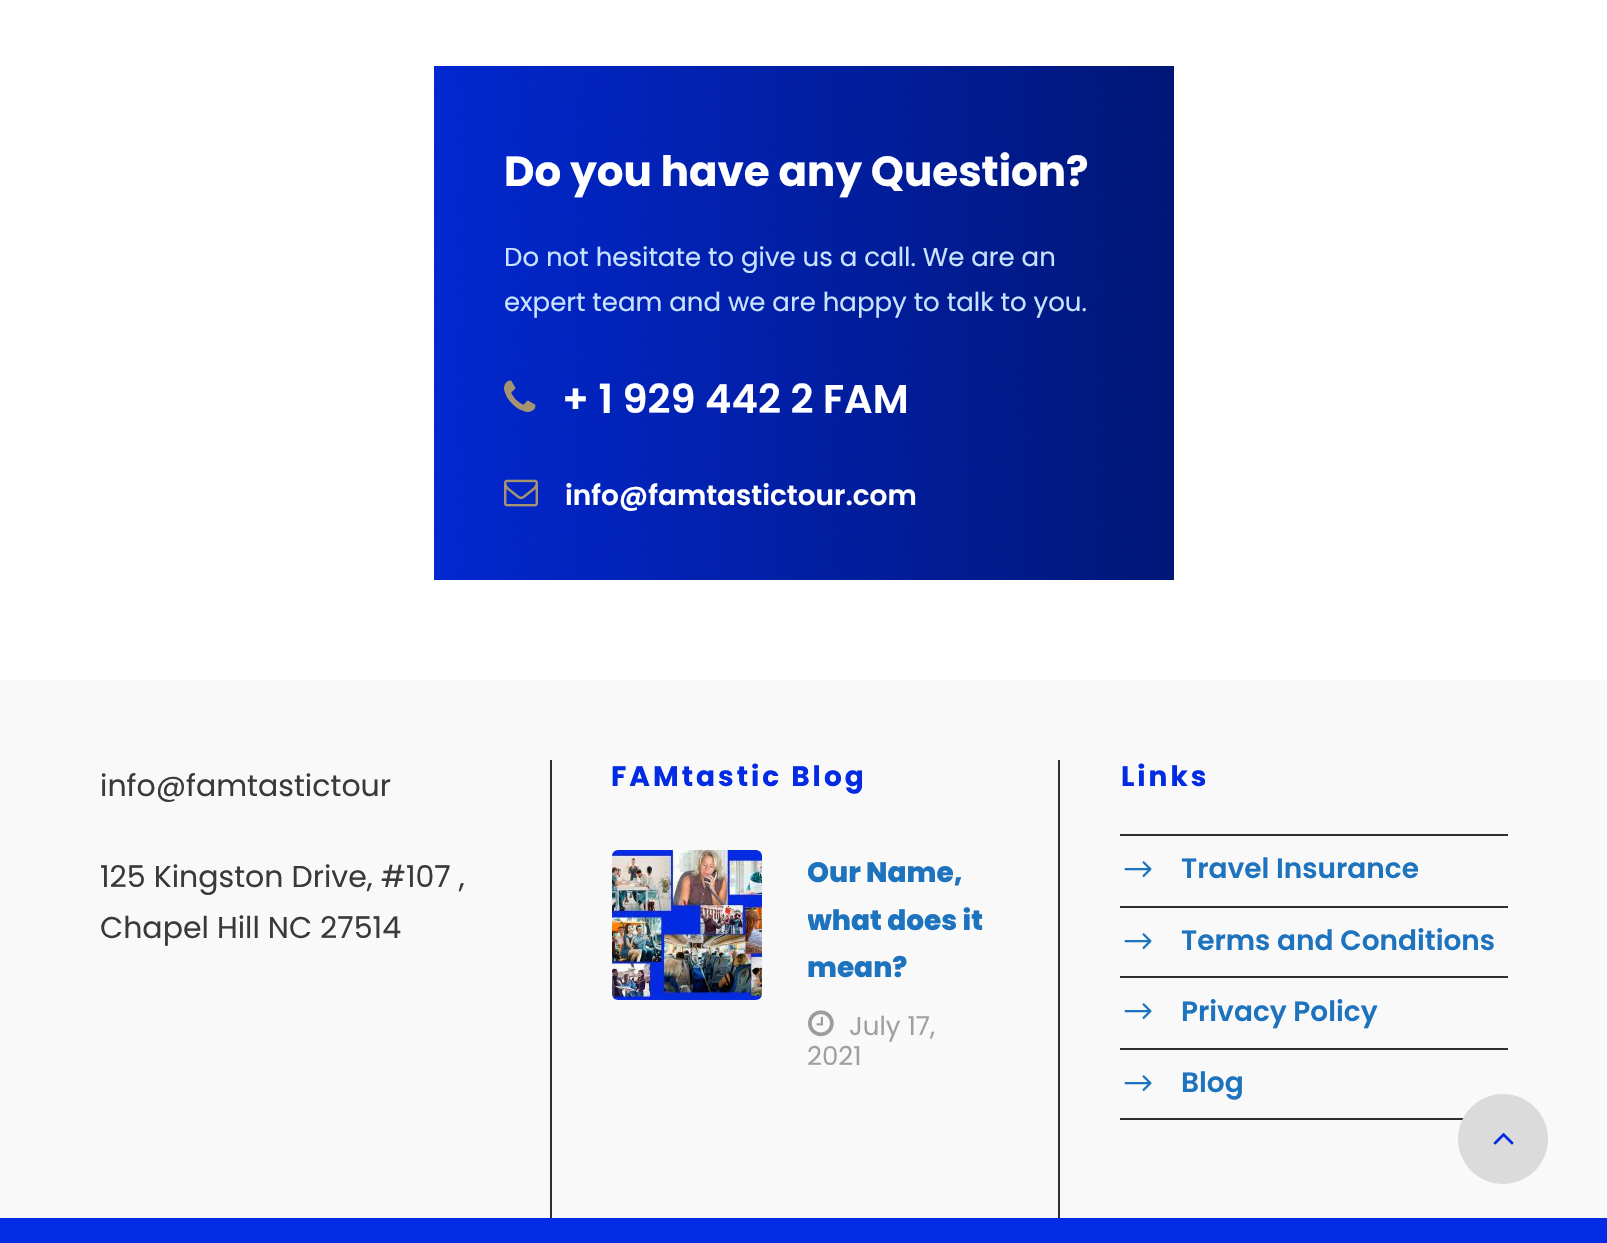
void draw(SkCanvas* canvas) {
  SkPaint paint;
  paint.setAntiAlias(true);
  auto face = [&](const char* family, int weight, float size, bool italic = false) {
    SkFontStyle style(weight, SkFontStyle::kNormal_Width,
      italic ? SkFontStyle::kItalic_Slant : SkFontStyle::kUpright_Slant);
    SkFont result(fontMgr->matchFamilyStyle(family, style), size);
    result.setSubpixel(true);
    return result;
  };
  auto writeSpaced = [&](const char* s, float x, float y, const SkFont& font, const SkPaint& ink, float letter, float word) {
    std::vector<SkGlyphID> glyphs(font.countText(s, strlen(s), SkTextEncoding::kUTF8));
    std::vector<float> xs(glyphs.size());
    font.textToGlyphs(s, strlen(s), SkTextEncoding::kUTF8, glyphs);
    font.getXPos(glyphs, xs, x);
    float extra = 0;
    for (size_t i = 0; i < glyphs.size(); i++) {
      xs[i] += extra;
      extra += letter + word * (glyphs[i] == font.unicharToGlyph(' '));
    }
    canvas->drawTextBlob(SkTextBlob::MakeFromPosHGlyphs(glyphs, xs, y, font), 0, 0, ink);
  };
  auto paste = [&](const char* path, float x, float y, float w, float h) {
    auto image = SkImages::DeferredFromEncodedData(SkData::MakeFromFileName(path));
    canvas->drawImageRect(image, SkRect::MakeXYWH(x, y, w, h), SkSamplingOptions());
  };
  canvas->clear(0xffffffff);
  paste("img/1.png", 434, 66, 740, 514);
  paste("img/2.png", 504, 380, 32, 32);
  paste("img/3.png", 504, 479, 34, 28);
  paint.setColor(0xfff9f9f9);
  canvas->drawRect(SkRect::MakeXYWH(0, 680, 1607, 538), paint);
  paint.setColor(0xff303030);
  canvas->drawRect(SkRect::MakeXYWH(550, 760, 2, 458), paint);
  paste("img/4.png", 612, 850, 150, 150);
  paste("img/5.png", 808, 1010, 26, 27);
  {
    const struct { float x, y, w, h; SkColor color; } items[] = {
      {1058, 760, 2, 458, 0xff303030},
      {1120, 834, 388, 2, 0xff303030},
      {1120, 906, 388, 2, 0xff303030},
    };
    for (auto [x, y, w, h, color] : items) {
      paint.setColor(color);
      canvas->drawRect(SkRect::MakeXYWH(x, y, w, h), paint);
    }
  }
  paste("img/6.png", 1124, 861, 28, 16);
  canvas->drawRect(SkRect::MakeXYWH(1120, 976, 388, 2), paint);
  paste("img/6.png", 1124, 933, 28, 16);
  canvas->drawRect(SkRect::MakeXYWH(1120, 1048, 388, 2), paint);
  paste("img/6.png", 1124, 1003, 28, 16);
  canvas->drawRect(SkRect::MakeXYWH(1120, 1118, 344, 2), paint);
  paste("img/6.png", 1124, 1075, 28, 16);
  paint.setColor(0xff022be3);
  canvas->drawRect(SkRect::MakeXYWH(0, 1218, 1607, 25), paint);
  paint.setColor(0xffdbdbdb);
  canvas->drawCircle(1503, 1139, 45, paint);
  paste("img/7.png", 1493, 1133, 21, 12);
  auto f0 = face("Poppins", 700, 42);
  paint.setColor(0xffffffff);
  canvas->drawString("Do you have any Question?", 504, 186, f0, paint);
  auto f1 = face("Poppins", 400, 26);
  paint.setColor(0xffc9e2ff);
  canvas->drawString("Do not hesitate to give us a call. We are an", 504, 266, f1, paint);
  canvas->drawString("expert team and we are happy to talk to you.", 504, 311, f1, paint);
  auto f2 = face("Poppins", 600, 40);
  paint.setColor(0xffffffff);
  canvas->drawString("+ 1 929 442 2 FAM", 562, 413, f2, paint);
  auto f3 = face("Poppins", 600, 28);
  canvas->drawString("info@famtastictour.com", 565, 505, f3, paint);
  auto f4 = face("Poppins", 400, 30);
  paint.setColor(0xff3a3a3a);
  {
    const struct { const char* s; float x, y; } items[] = {
      {"info@famtastictour", 100, 796},
      {"125 Kingston Drive, #107 ,", 100, 887},
      {"Chapel Hill NC 27514", 100, 938},
    };
    for (auto [s, x, y] : items) {
      canvas->drawString(s, x, y, f4, paint);
    }
  }
  auto f5 = face("Poppins", 700, 28);
  paint.setColor(0xff022be3);
  writeSpaced("FAMtastic Blog", 611, 786, f5, paint, 3, 0);
  auto f6 = face("Poppins", 800, 28);
  paint.setColor(0xff1e73be);
  canvas->drawString("Our Name,", 807, 882, f6, paint);
  canvas->save();
  canvas->clipRect(SkRect::MakeXYWH(808, 850, 190, 230));
  canvas->drawString("what does it", 807, 930, f6, paint);
  canvas->restore();
  canvas->drawString("mean?", 807, 977, f6, paint);
  paint.setColor(0xffa0a0a0);
  canvas->drawString("July 17,", 849, 1035, f1, paint);
  canvas->drawString("2021", 807, 1065, f1, paint);
  paint.setColor(0xff022be3);
  writeSpaced("Links", 1121, 786, f5, paint, 3, 0);
  paint.setColor(0xff1e73be);
  {
    const struct { const char* s; float x, y; } items[] = {
      {"Travel Insurance", 1181, 878},
      {"Terms and Conditions", 1181, 950},
      {"Privacy Policy", 1181, 1021},
      {"Blog", 1181, 1092},
    };
    for (auto [s, x, y] : items) {
      canvas->drawString(s, x, y, f3, paint);
    }
  }
}
